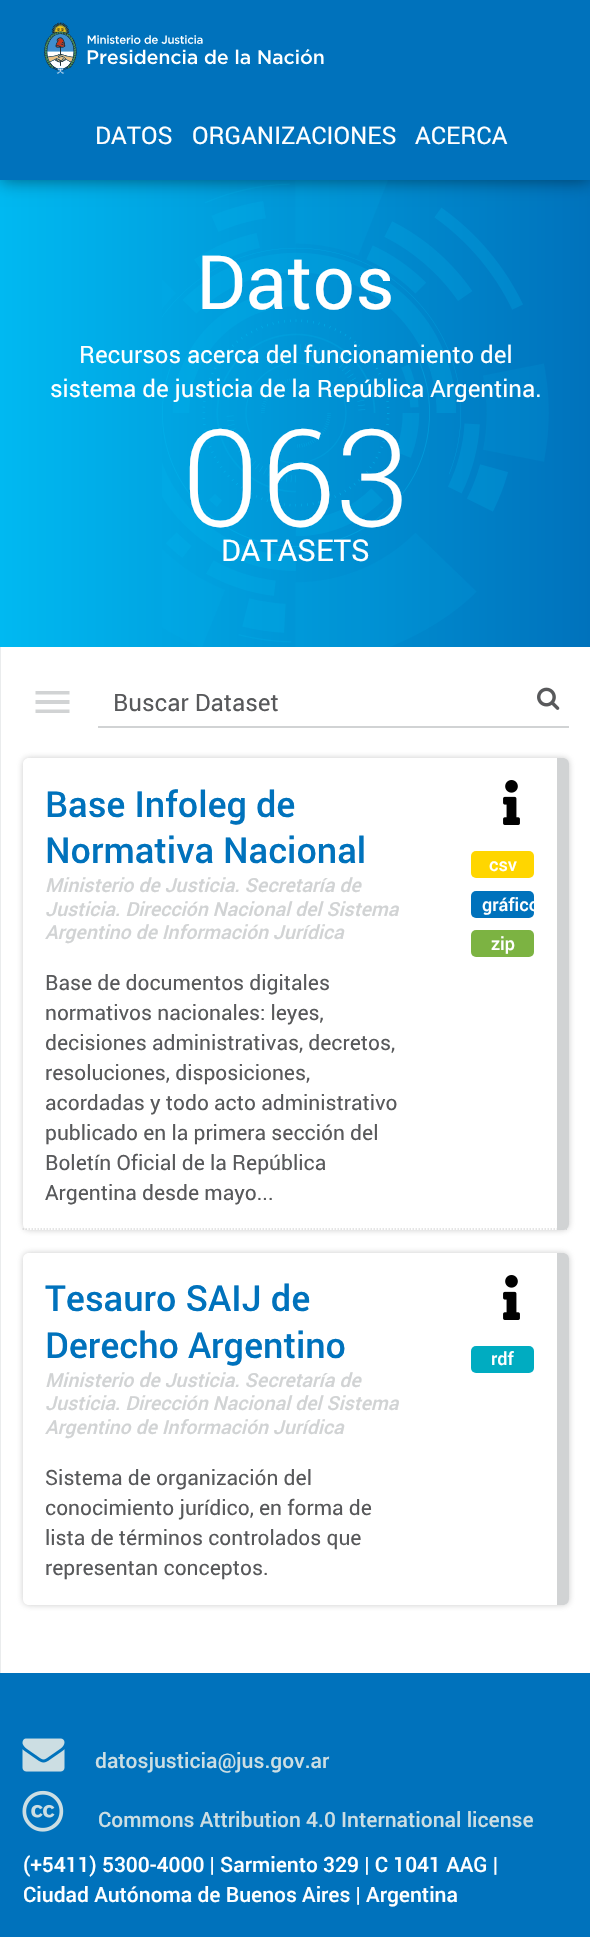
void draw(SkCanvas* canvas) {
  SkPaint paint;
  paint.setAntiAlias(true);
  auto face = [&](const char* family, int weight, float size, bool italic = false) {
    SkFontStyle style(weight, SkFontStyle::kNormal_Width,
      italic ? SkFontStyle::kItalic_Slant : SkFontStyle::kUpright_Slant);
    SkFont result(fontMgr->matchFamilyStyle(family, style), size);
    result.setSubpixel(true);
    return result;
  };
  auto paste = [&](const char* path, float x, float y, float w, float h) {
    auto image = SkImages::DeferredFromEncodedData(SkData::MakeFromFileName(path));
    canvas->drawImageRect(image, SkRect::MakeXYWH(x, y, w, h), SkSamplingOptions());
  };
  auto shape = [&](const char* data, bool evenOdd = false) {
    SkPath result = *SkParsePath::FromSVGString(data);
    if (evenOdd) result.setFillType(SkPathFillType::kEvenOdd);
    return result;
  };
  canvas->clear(0xffffffff);
  {
    const SkColor colors[] = {0xff00b9f1, 0xff0072bc};
    const float stops[] = {0, 1};
    const SkPoint ends[] = {{0, 413}, {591, 413}};
    paint.setShader(SkGradientShader::MakeLinear(ends, colors, stops, 2, SkTileMode::kClamp));
    paint.setAlpha(255);
  }
  canvas->drawRect(SkRect::MakeXYWH(0, 180, 590, 467), paint);
  paste("img/2.png", 162, 180, 387, 467);
  paint.setShader(nullptr);
  paint.setColor(0x80000000);
  paint.setMaskFilter(SkMaskFilter::MakeBlur(kNormal_SkBlurStyle, 9));
  canvas->drawRect(SkRect::MakeXYWH(0, 0, 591, 180), paint);
  paint.setMaskFilter(nullptr);
  paint.setColor(0xff0072bc);
  canvas->drawRect(SkRect::MakeXYWH(0, 0, 590, 180), paint);
  paste("img/1.png", 44, 22, 280, 52);
  paint.setColor(0xffeaeced);
  canvas->drawRect(SkRect::MakeXYWH(0, 647, 1, 1026), paint);
  paint.setColor(0xffd1d3d4);
  canvas->drawPath(shape("M35.5 713H69.5V709.5H35.5ZM35.5 704H69.5V700H35.5ZM35.5 691V694.5H69.5V691Z"), paint);
  canvas->drawRect(SkRect::MakeXYWH(98, 726, 471, 2), paint);
  paste("img/3.png", 537, 687, 23, 23);
  paint.setStroke(true);
  paint.setStrokeWidth(1.5f);
  paint.setColor(0xffdddddd);
  paint.setPathEffect(SkDashPathEffect::Make({{1.5f, 1.5f}}, 0));
  canvas->drawPath(shape("M22.5 1229H568.5"), paint);
  paint.setPathEffect(nullptr);
  canvas->save();
  canvas->clipPath(shape("M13 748H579V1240H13ZM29 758H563C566.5 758 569 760.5 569 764V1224C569 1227.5 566.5 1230 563 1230H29C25.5 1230 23 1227.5 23 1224V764C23 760.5 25.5 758 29 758Z", true), true);
  paint.setStroke(false);
  paint.setColor(0x80969696);
  paint.setMaskFilter(SkMaskFilter::MakeBlur(kNormal_SkBlurStyle, 3));
  canvas->drawRoundRect(SkRect::MakeXYWH(23, 758, 546, 472), 6, 6, paint);
  paint.setMaskFilter(nullptr);
  canvas->restore();
  paint.setColor(0xffd1d3d4);
  canvas->drawPath(shape("M557 758H563C566.5 758 569 760.5 569 764V1224C569 1227.5 566.5 1230 563 1230H557Z"), paint);
  paste("img/4.png", 503, 780, 17, 45);
  paint.setColor(0xffffd600);
  canvas->drawRoundRect(SkRect::MakeXYWH(471, 851, 63, 27), 5, 5, paint);
  paint.setColor(0xff0072bc);
  canvas->drawRoundRect(SkRect::MakeXYWH(471, 891, 63, 27), 5, 5, paint);
  paint.setColor(0xff7cb342);
  canvas->drawRoundRect(SkRect::MakeXYWH(471, 930, 63, 27), 5, 5, paint);
  canvas->save();
  canvas->clipPath(shape("M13 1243H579V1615H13ZM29 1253H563C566.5 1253 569 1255.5 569 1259V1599C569 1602.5 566.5 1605 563 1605H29C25.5 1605 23 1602.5 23 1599V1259C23 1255.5 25.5 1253 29 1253Z", true), true);
  paint.setColor(0x80969696);
  paint.setMaskFilter(SkMaskFilter::MakeBlur(kNormal_SkBlurStyle, 3));
  canvas->drawRoundRect(SkRect::MakeXYWH(23, 1253, 546, 352), 6, 6, paint);
  paint.setMaskFilter(nullptr);
  canvas->restore();
  paint.setColor(0xffd1d3d4);
  canvas->drawPath(shape("M557 1253H563C566.5 1253 569 1255.5 569 1259V1599C569 1602.5 566.5 1605 563 1605H557Z"), paint);
  paste("img/4.png", 503, 1275, 17, 45);
  paint.setColor(0xff00acc1);
  canvas->drawRoundRect(SkRect::MakeXYWH(471, 1346, 63, 27), 5, 5, paint);
  paint.setColor(0xff0072bc);
  canvas->drawRect(SkRect::MakeXYWH(0, 1673, 590, 264), paint);
  paste("img/5.png", 22, 1738, 43, 34);
  paste("img/6.png", 22, 1790, 42, 42);
  auto f0 = face("Roboto", 400, 24.25f);
  paint.setColor(0xffffffff);
  {
    const struct { const char* s; float x, y; } items[] = {
      {"DATOS", 95, 144},
      {"ORGANIZACIONES", 192, 144},
      {"ACERCA", 415, 144},
    };
    for (auto [s, x, y] : items) {
      canvas->drawString(s, x, y, f0, paint);
    }
  }
  auto f1 = face("Roboto", 400, 75);
  canvas->drawString("Datos", 196, 309, f1, paint);
  auto f2 = face("Roboto", 400, 24);
  canvas->drawString("Recursos acerca del funcionamiento del", 79, 363, f2, paint);
  canvas->drawString("sistema de justicia de la República Argentina.", 50, 397, f2, paint);
  auto f3 = face("Roboto", 300, 135);
  canvas->drawString("063", 181, 526, f3, paint);
  auto f4 = face("Roboto", 400, 30);
  canvas->drawString("DATASETS", 221, 561, f4, paint);
  paint.setColor(0xff58595b);
  canvas->drawString("Buscar Dataset", 113, 711, f2, paint);
  auto f5 = face("Roboto", 500, 36);
  paint.setColor(0xff0072bc);
  canvas->drawString("Base Infoleg de", 45, 817, f5, paint);
  canvas->drawString("Normativa Nacional", 45, 863, f5, paint);
  auto f6 = face("Roboto", 500, 19.5f, true);
  paint.setColor(0xffd1d3d4);
  {
    const struct { const char* s; float x, y; } items[] = {
      {"Ministerio de Justicia. Secretaría de", 45, 892},
      {"Justicia. Dirección Nacional del Sistema", 45, 916},
      {"Argentino de Información Jurídica", 45, 939},
    };
    for (auto [s, x, y] : items) {
      canvas->drawString(s, x, y, f6, paint);
    }
  }
  auto f7 = face("Roboto", 400, 21);
  paint.setColor(0xff58595b);
  {
    const struct { const char* s; float x, y; } items[] = {
      {"Base de documentos digitales", 45, 990},
      {"normativos nacionales: leyes,", 45, 1020},
      {"decisiones administrativas, decretos,", 45, 1050},
      {"resoluciones, disposiciones,", 45, 1080},
      {"acordadas y todo acto administrativo", 45, 1110},
      {"publicado en la primera sección del", 45, 1140},
      {"Boletín Oficial de la República", 45, 1170},
      {"Argentina desde mayo...", 45, 1200},
    };
    for (auto [s, x, y] : items) {
      canvas->drawString(s, x, y, f7, paint);
    }
  }
  auto f8 = face("Roboto", 500, 18);
  paint.setColor(0xffffffff);
  {
    const struct { const char* s; float x, y; } items[] = {
      {"csv", 489, 871},
      {"gráfico", 482, 911},
      {"zip", 491, 950},
    };
    for (auto [s, x, y] : items) {
      canvas->drawString(s, x, y, f8, paint);
    }
  }
  paint.setColor(0xff0072bc);
  canvas->drawString("Tesauro SAIJ de", 45, 1311, f5, paint);
  canvas->drawString("Derecho Argentino", 45, 1358, f5, paint);
  paint.setColor(0xffd1d3d4);
  {
    const struct { const char* s; float x, y; } items[] = {
      {"Ministerio de Justicia. Secretaría de", 45, 1387},
      {"Justicia. Dirección Nacional del Sistema", 45, 1410},
      {"Argentino de Información Jurídica", 45, 1434},
    };
    for (auto [s, x, y] : items) {
      canvas->drawString(s, x, y, f6, paint);
    }
  }
  paint.setColor(0xff58595b);
  {
    const struct { const char* s; float x, y; } items[] = {
      {"Sistema de organización del", 45, 1485},
      {"conocimiento jurídico, en forma de", 45, 1515},
      {"lista de términos controlados que", 45, 1545},
      {"representan conceptos.", 45, 1575},
    };
    for (auto [s, x, y] : items) {
      canvas->drawString(s, x, y, f7, paint);
    }
  }
  paint.setColor(0xffffffff);
  canvas->drawString("rdf", 491, 1365, f8, paint);
  auto f9 = face("Roboto", 500, 21);
  paint.setColor(0xffccdee3);
  canvas->drawString("datosjusticia@jus.gov.ar", 95, 1768, f9, paint);
  canvas->drawString("Commons Attribution 4.0 International license", 98, 1827, f9, paint);
  paint.setColor(0xffffffff);
  canvas->drawString("(+5411) 5300-4000 | Sarmiento 329 | C 1041 AAG |", 23, 1872, f9, paint);
  canvas->drawString("Ciudad Autónoma de Buenos Aires | Argentina", 23, 1902, f9, paint);
}
